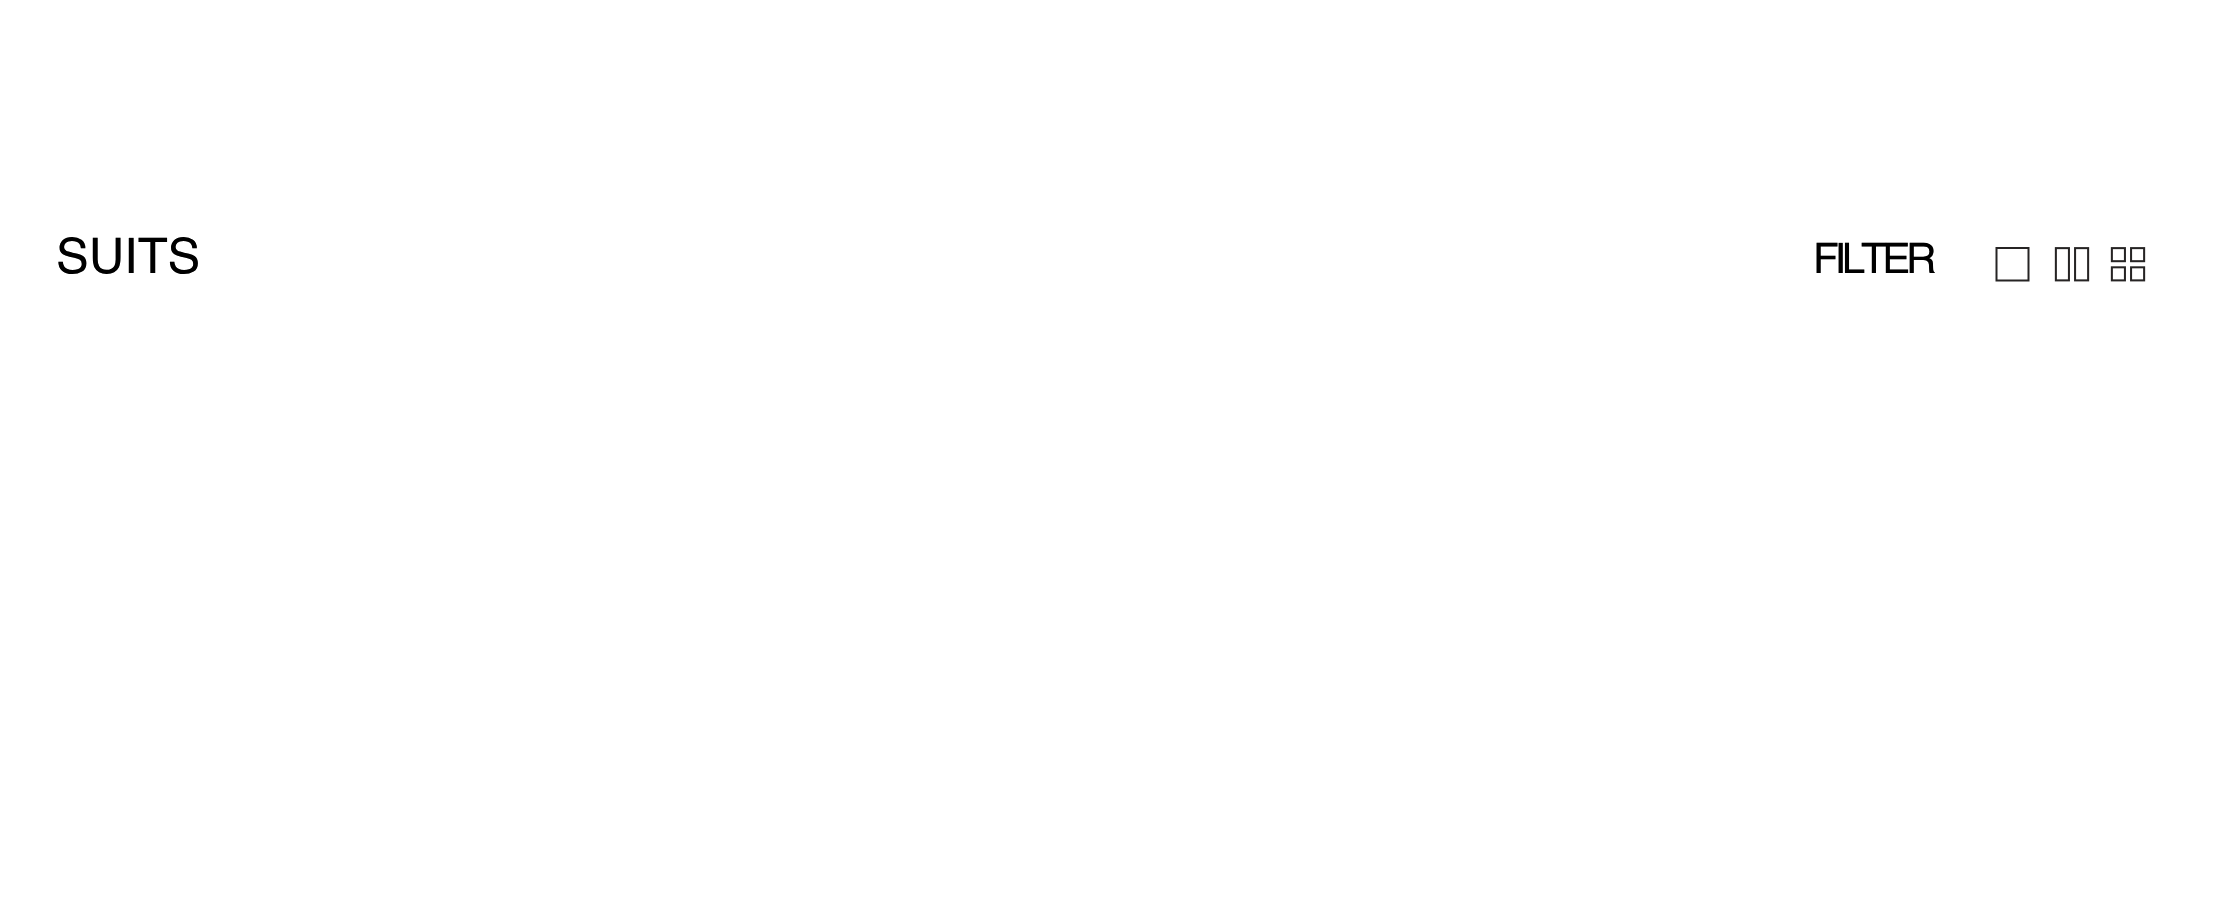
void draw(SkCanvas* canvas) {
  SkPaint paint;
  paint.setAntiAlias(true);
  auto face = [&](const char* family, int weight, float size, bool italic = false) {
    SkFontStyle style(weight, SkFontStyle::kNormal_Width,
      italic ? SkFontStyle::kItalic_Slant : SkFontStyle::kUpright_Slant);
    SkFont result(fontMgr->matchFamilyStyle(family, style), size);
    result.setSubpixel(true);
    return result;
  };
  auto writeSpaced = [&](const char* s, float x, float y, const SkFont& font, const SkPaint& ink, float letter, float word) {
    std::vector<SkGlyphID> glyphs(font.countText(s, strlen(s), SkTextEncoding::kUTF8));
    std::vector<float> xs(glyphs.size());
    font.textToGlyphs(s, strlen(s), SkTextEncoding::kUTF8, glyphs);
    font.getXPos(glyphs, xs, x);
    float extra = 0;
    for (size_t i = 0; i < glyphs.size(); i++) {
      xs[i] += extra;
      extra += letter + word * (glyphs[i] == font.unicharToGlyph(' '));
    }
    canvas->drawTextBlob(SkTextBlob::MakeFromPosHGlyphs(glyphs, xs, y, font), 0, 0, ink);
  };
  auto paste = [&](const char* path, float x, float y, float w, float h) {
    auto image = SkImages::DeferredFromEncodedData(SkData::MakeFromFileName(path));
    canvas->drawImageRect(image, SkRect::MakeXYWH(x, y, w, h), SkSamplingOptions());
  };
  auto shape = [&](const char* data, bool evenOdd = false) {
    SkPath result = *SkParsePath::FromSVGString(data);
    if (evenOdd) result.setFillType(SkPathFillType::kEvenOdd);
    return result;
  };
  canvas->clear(0xffffffff);
  paint.setColor(0xff262424);
  canvas->drawPath(shape("M2027.5 249H1997.5V279.5H2027.5ZM1995.5 247V281.5H2029.5V247Z", true), paint);
  paste("img/1.png", 2054, 247, 36, 35);
  paste("img/2.png", 2110, 247, 36, 35);
  auto f0 = face("Helvetica", 400, 49);
  paint.setColor(0xff000000);
  canvas->drawString("SUITS", 56, 273, f0, paint);
  auto f1 = face("Helvetica", 400, 42);
  writeSpaced("FILTER", 1813, 273, f1, paint, -4.25f, 0);
}
